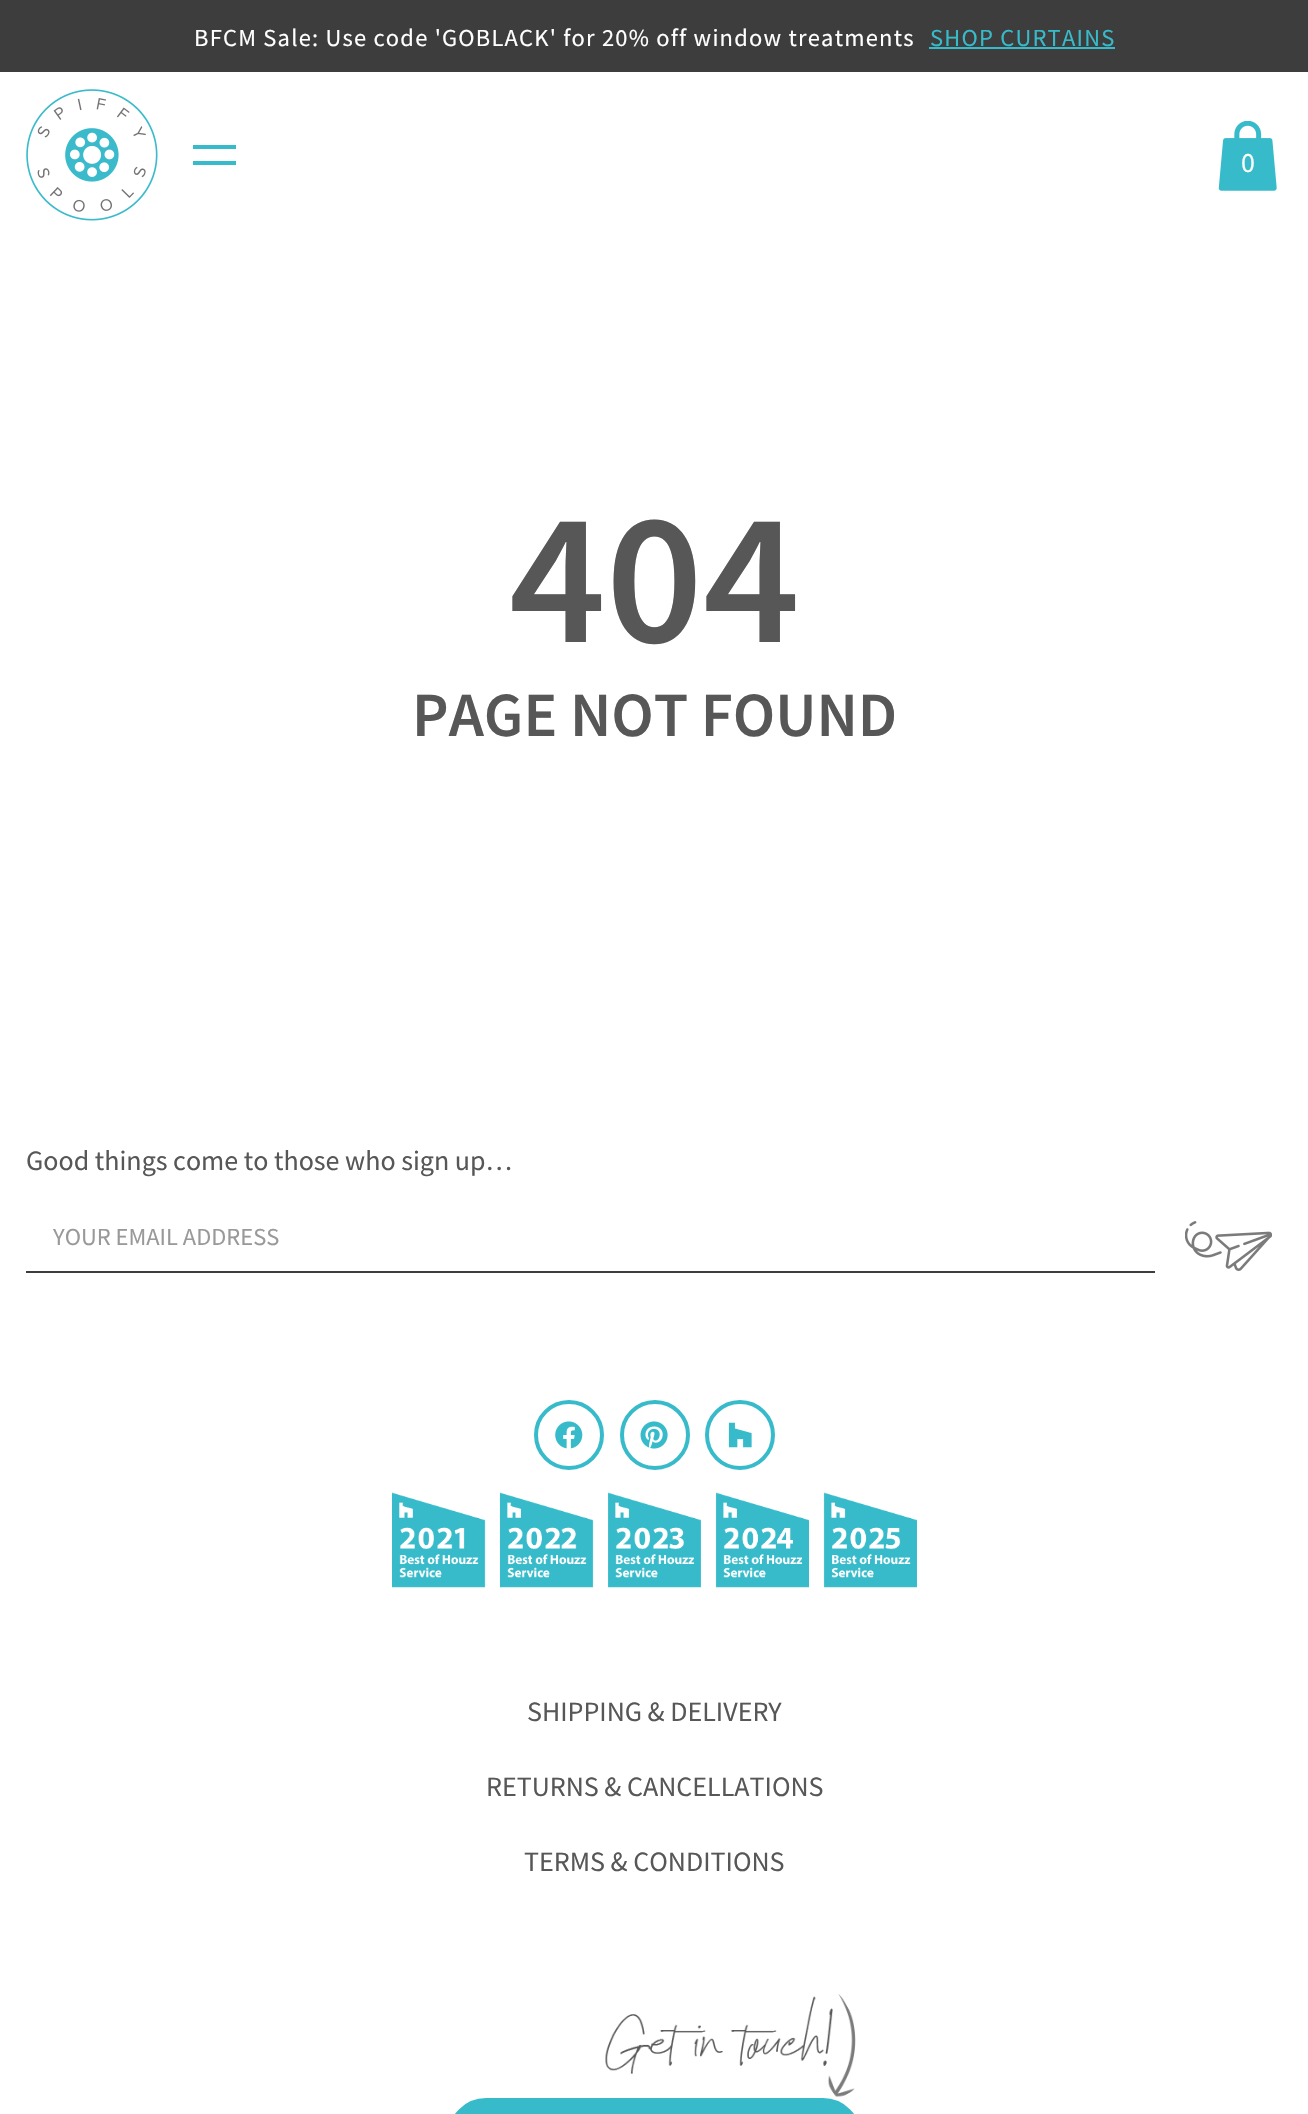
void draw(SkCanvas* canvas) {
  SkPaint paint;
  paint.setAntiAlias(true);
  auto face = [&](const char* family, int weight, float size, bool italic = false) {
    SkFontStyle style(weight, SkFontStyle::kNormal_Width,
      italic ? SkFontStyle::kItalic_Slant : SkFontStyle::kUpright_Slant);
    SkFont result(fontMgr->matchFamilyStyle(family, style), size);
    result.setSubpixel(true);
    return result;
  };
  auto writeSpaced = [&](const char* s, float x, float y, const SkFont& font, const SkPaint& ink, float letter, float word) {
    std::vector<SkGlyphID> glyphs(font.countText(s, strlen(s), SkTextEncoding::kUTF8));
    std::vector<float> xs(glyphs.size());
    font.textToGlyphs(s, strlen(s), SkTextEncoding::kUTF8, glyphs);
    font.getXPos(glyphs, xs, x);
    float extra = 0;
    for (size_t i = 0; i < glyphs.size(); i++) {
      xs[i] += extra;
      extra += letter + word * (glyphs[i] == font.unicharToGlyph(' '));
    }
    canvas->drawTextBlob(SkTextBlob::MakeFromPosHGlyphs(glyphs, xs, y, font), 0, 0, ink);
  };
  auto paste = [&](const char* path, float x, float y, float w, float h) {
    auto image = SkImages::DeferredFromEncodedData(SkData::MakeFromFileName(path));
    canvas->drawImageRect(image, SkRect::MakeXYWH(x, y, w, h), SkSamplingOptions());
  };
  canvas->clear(0xffffffff);
  paint.setColor(0xff3d3d3d);
  canvas->drawRect(SkRect::MakeXYWH(0, 0, 1308, 72), paint);
  paint.setColor(0xff37bbca);
  canvas->drawRect(SkRect::MakeXYWH(929, 47, 186, 2), paint);
  paste("img/1.png", 26, 89, 132, 132);
  canvas->drawRect(SkRect::MakeXYWH(193, 145, 43, 4), paint);
  canvas->drawRect(SkRect::MakeXYWH(193, 161, 43, 4), paint);
  paste("img/2.png", 1218, 121, 59, 70);
  paint.setColor(0xff3d3d3d);
  canvas->drawRect(SkRect::MakeXYWH(26, 1271, 1129, 2), paint);
  paste("img/3.png", 1185, 1221, 87, 50);
  paint.setStroke(true);
  paint.setStrokeWidth(4);
  paint.setColor(0xff37bbca);
  canvas->drawCircle(569, 1435, 33, paint);
  paste("img/4.png", 555, 1421, 28, 28);
  canvas->drawCircle(655, 1435, 33, paint);
  paste("img/5.png", 640, 1421, 28, 28);
  canvas->drawCircle(740, 1435, 33, paint);
  paste("img/6.png", 728, 1422, 24, 26);
  paste("img/7.png", 392, 1492, 525, 96);
  paint.setStroke(false);
  canvas->drawRoundRect(SkRect::MakeXYWH(450, 2100, 409, 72), 54, 54, paint);
  paint.setStroke(true);
  canvas->drawRoundRect(SkRect::MakeXYWH(450, 2100, 409, 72), 54, 54, paint);
  paste("img/8.png", 605, 1994, 251, 103);
  auto f0 = face("Source Sans Pro", 400, 24.5f);
  paint.setStroke(false);
  paint.setColor(0xffffffff);
  writeSpaced("BFCM Sale: Use code 'GOBLACK' for 20% off window treatments", 194, 46, f0, paint, 1.22f, 0);
  paint.setColor(0xff37bbca);
  writeSpaced("SHOP CURTAINS", 930, 46, f0, paint, 1.22f, 0);
  auto f1 = face("Source Sans Pro", 400, 28);
  paint.setColor(0xffffffff);
  canvas->drawString("0", 1241, 172, f1, paint);
  auto f2 = face("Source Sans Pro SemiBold", 600, 189);
  paint.setColor(0xff575757);
  canvas->drawString("404", 509, 642, f2, paint);
  auto f3 = face("Source Sans Pro SemiBold", 600, 63);
  canvas->drawString("PAGE NOT FOUND", 412, 736, f3, paint);
  canvas->drawString("Good things come to those who sign up…", 26, 1170, f1, paint);
  paint.setColor(0xff999999);
  canvas->drawString("YOUR EMAIL ADDRESS", 53, 1245, f0, paint);
  paint.setColor(0xff575757);
  {
    const struct { const char* s; float x, y; } items[] = {
      {"SHIPPING & DELIVERY", 527, 1721},
      {"RETURNS & CANCELLATIONS", 486, 1796},
      {"TERMS & CONDITIONS", 524, 1871},
    };
    for (auto [s, x, y] : items) {
      canvas->drawString(s, x, y, f1, paint);
    }
  }
}
